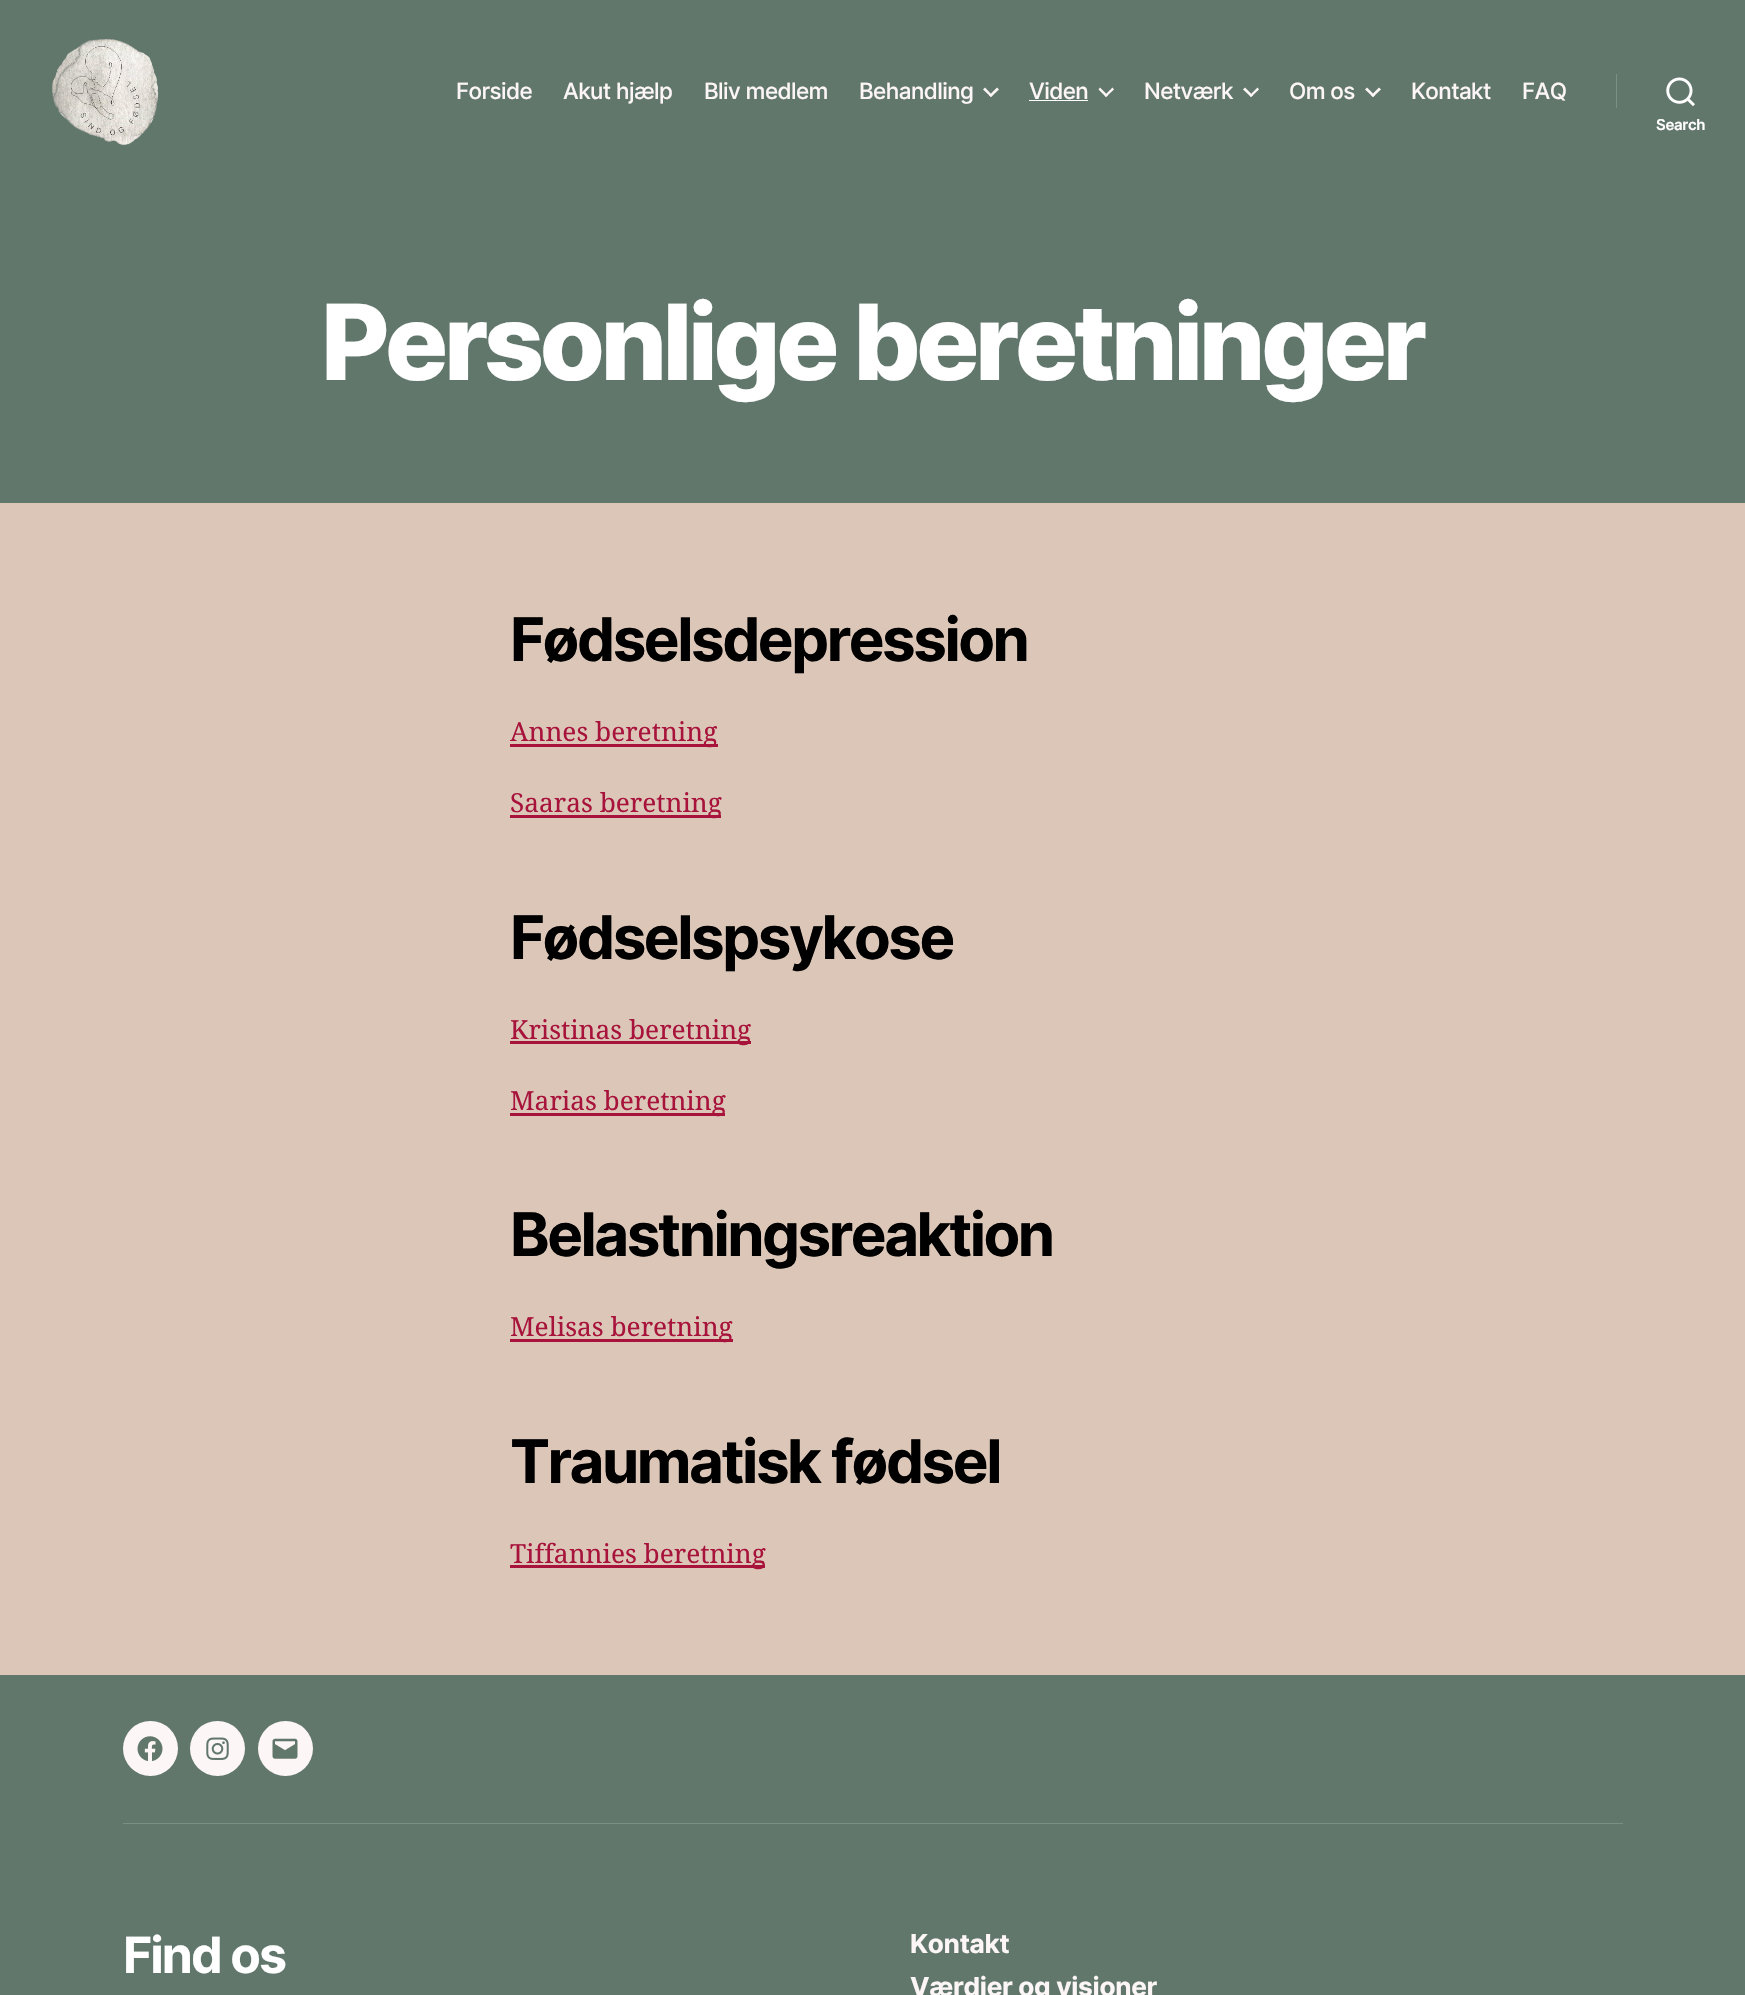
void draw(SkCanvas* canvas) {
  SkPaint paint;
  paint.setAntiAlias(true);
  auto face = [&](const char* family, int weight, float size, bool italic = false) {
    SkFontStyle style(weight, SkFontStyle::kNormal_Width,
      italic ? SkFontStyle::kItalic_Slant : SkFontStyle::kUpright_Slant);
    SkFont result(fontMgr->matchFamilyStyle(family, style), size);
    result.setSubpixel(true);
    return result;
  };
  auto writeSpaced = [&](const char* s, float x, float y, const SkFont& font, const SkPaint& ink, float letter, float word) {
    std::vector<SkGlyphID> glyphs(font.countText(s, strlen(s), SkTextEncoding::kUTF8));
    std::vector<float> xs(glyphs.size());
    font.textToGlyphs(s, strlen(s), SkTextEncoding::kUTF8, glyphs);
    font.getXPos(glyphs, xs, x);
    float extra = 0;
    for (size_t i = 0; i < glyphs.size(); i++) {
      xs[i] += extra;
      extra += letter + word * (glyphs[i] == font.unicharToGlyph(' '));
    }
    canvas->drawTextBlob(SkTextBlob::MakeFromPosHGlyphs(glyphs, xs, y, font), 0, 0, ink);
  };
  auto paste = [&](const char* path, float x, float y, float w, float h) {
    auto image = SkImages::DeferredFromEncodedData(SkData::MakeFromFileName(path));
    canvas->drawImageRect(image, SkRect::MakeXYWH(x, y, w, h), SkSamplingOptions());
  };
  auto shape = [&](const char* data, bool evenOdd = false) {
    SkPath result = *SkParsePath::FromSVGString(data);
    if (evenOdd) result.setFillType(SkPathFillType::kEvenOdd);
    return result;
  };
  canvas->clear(0xffdbc6b8);
  paint.setColor(0xff62776c);
  canvas->drawRect(SkRect::MakeXYWH(0, 0, 1745, 503), paint);
  paste("img/1.png", 52, 39, 107, 106);
  paint.setColor(0xfffdf6f7);
  canvas->drawPath(shape("M983 89.5L985 87.5L992.5 95.5L991 97Z"), paint);
  canvas->drawPath(shape("M989 95.5L997 87.5L999 89.5L991 97Z"), paint);
  paint.setColor(0xffffffff);
  canvas->drawRect(SkRect::MakeXYWH(1029, 100, 59, 1), paint);
  paint.setColor(0xfffdf6f7);
  canvas->drawPath(shape("M1098.5 89.5L1100 87.5L1108 95.5L1106 97Z"), paint);
  canvas->drawPath(shape("M1104.5 95.5L1112.5 87.5L1114 89.5L1106 97Z"), paint);
  canvas->drawPath(shape("M1243 89.5L1245 87.5L1253 95.5L1251 97Z"), paint);
  canvas->drawPath(shape("M1249.5 95.5L1257.5 87.5L1259 89.5L1251 97Z"), paint);
  canvas->drawPath(shape("M1365 89.5L1367 87.5L1375 95.5L1373 97Z"), paint);
  canvas->drawPath(shape("M1371 95.5L1379 87.5L1381 89.5L1373 97Z"), paint);
  paint.setColor(0xff789085);
  canvas->drawRect(SkRect::MakeXYWH(1616, 74, 1, 34), paint);
  paste("img/2.png", 1666, 77, 29, 30);
  {
    const struct { float x, y, w, h; SkColor color; } items[] = {
      {510, 744, 208, 3, 0xffa8133b},
      {510, 815, 211, 3, 0xffa8133b},
      {510, 1041, 241, 3, 0xffa8133b},
      {510, 1113, 215, 3, 0xffa8133b},
      {510, 1339, 223, 3, 0xffa8133b},
      {510, 1565, 255, 3, 0xffa8133b},
      {0, 1675, 1745, 320, 0xff62776c},
      {123, 1823, 1500, 1, 0xff789085},
    };
    for (auto [x, y, w, h, color] : items) {
      paint.setColor(color);
      canvas->drawRect(SkRect::MakeXYWH(x, y, w, h), paint);
    }
  }
  paint.setColor(0xfffdf6f7);
  canvas->drawCircle(150.5f, 1748.5f, 27.5f, paint);
  paste("img/3.png", 137, 1736, 26, 26);
  canvas->drawCircle(217.5f, 1748.5f, 27.5f, paint);
  paste("img/4.png", 206, 1737, 23, 23);
  canvas->drawCircle(285.5f, 1748.5f, 27.5f, paint);
  paste("img/5.png", 272, 1738, 26, 21);
  auto f0 = face("Inter", 500, 22.5f);
  {
    const struct { const char* s; float x, y; } items[] = {
      {"Forside", 456, 99},
      {"Akut hjælp", 563, 99},
      {"Bliv medlem", 704, 99},
      {"Behandling", 859, 99},
      {"Viden", 1029, 99},
      {"Netværk", 1144, 99},
      {"Om os", 1289, 99},
      {"Kontakt", 1411, 99},
      {"FAQ", 1522, 99},
    };
    for (auto [s, x, y] : items) {
      writeSpaced(s, x, y, f0, paint, -0.6f, 0);
    }
  }
  auto f1 = face("Inter", 600, 15);
  paint.setColor(0xffffffff);
  writeSpaced("Search", 1656, 130, f1, paint, -0.3f, 0);
  auto f2 = face("Inter", 800, 105);
  writeSpaced("Personlige beretninger", 321, 380, f2, paint, -4.4f, 0);
  auto f3 = face("Inter", 700, 60);
  paint.setColor(0xff000000);
  writeSpaced("Fødselsdepression", 510, 661, f3, paint, -2.5f, 0);
  auto f4 = face("Noto Serif", 400, 26.25f);
  paint.setColor(0xffa8133b);
  canvas->drawString("Annes beretning", 510, 741, f4, paint);
  canvas->drawString("Saaras beretning", 510, 812, f4, paint);
  paint.setColor(0xff000000);
  writeSpaced("Fødselspsykose", 510, 959, f3, paint, -2.5f, 0);
  paint.setColor(0xffa8133b);
  canvas->drawString("Kristinas beretning", 510, 1039, f4, paint);
  canvas->drawString("Marias beretning", 510, 1110, f4, paint);
  paint.setColor(0xff000000);
  writeSpaced("Belastningsreaktion", 510, 1256, f3, paint, -2.5f, 0);
  paint.setColor(0xffa8133b);
  canvas->drawString("Melisas beretning", 510, 1336, f4, paint);
  paint.setColor(0xff000000);
  writeSpaced("Traumatisk fødsel", 510, 1483, f3, paint, -2.5f, 0);
  paint.setColor(0xffa8133b);
  canvas->drawString("Tiffannies beretning", 510, 1563, f4, paint);
  auto f5 = face("Inter", 700, 50);
  paint.setColor(0xffffffff);
  writeSpaced("Find os", 123, 1973, f5, paint, -2, 0);
  auto f6 = face("Inter", 700, 26.25f);
  paint.setColor(0xfffdf6f7);
  writeSpaced("Kontakt", 910, 1953, f6, paint, -0.3f, 0);
  writeSpaced("Værdier og visioner", 910, 1996, f6, paint, -0.3f, 0);
}
